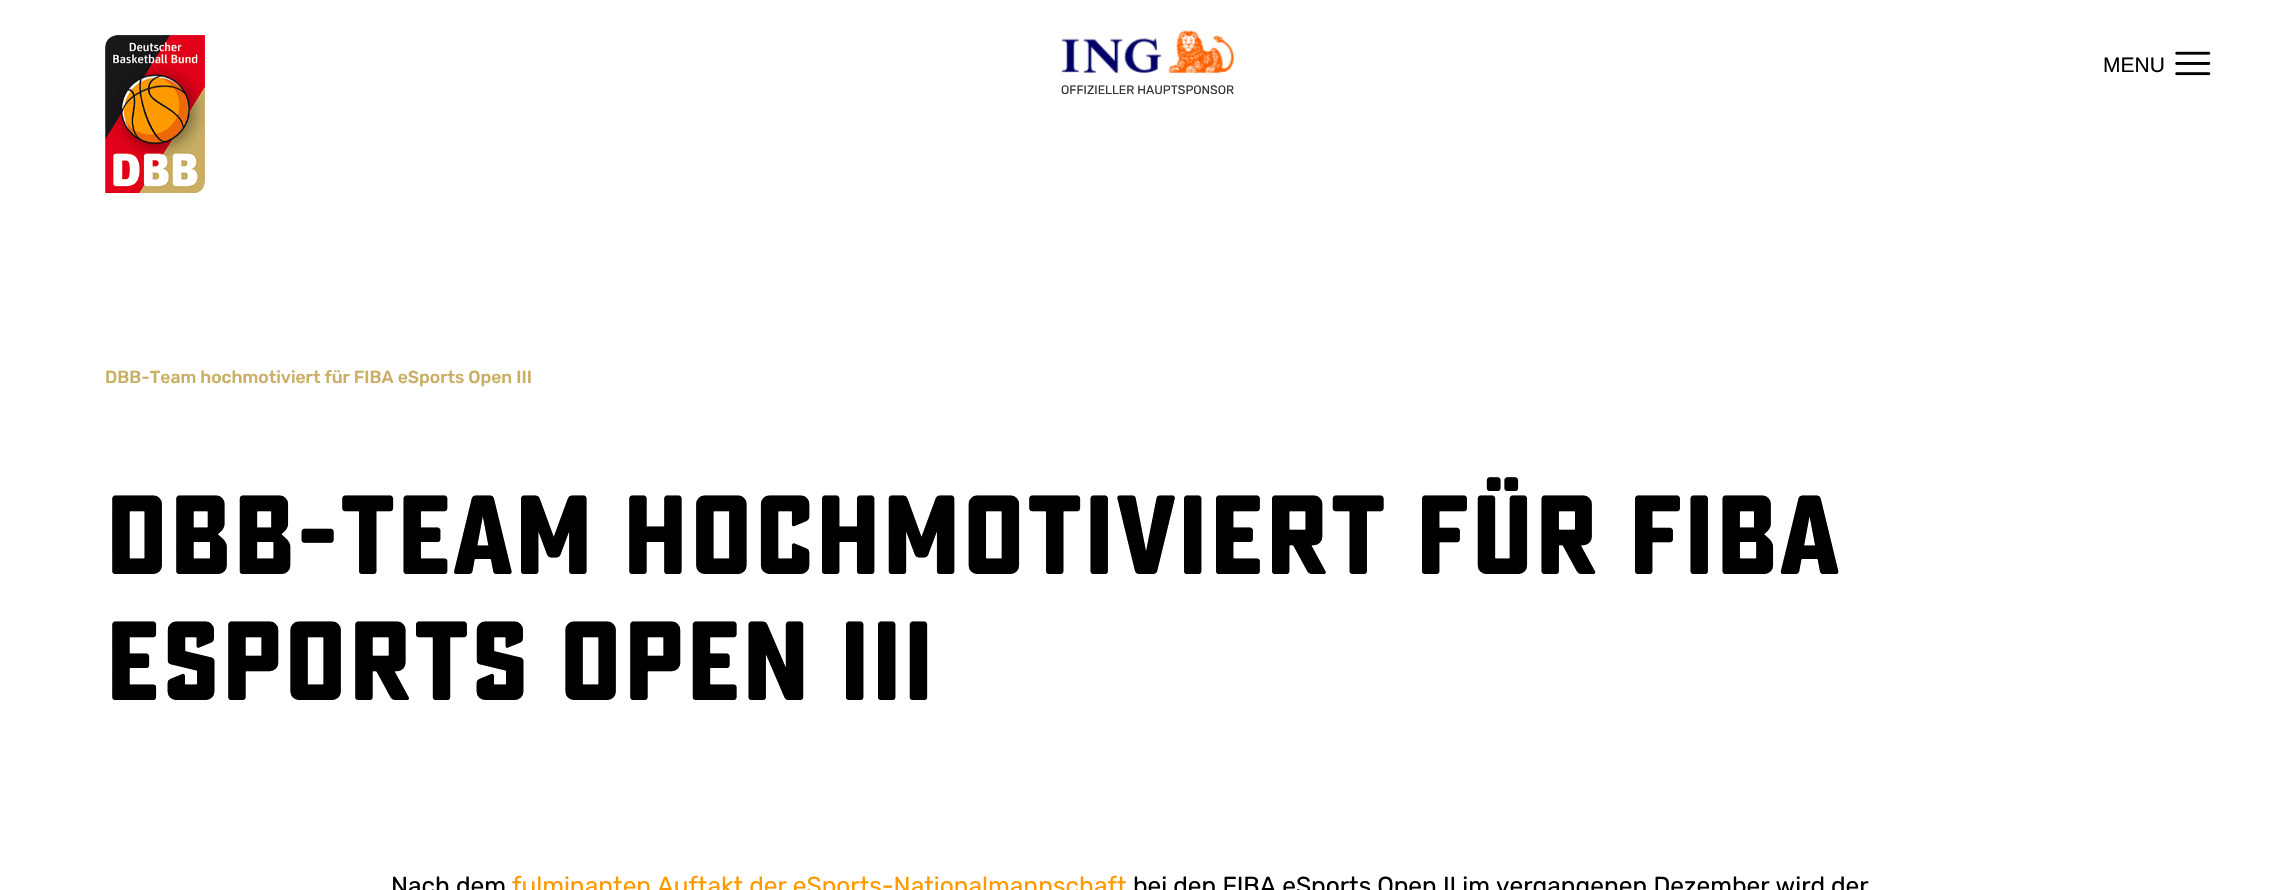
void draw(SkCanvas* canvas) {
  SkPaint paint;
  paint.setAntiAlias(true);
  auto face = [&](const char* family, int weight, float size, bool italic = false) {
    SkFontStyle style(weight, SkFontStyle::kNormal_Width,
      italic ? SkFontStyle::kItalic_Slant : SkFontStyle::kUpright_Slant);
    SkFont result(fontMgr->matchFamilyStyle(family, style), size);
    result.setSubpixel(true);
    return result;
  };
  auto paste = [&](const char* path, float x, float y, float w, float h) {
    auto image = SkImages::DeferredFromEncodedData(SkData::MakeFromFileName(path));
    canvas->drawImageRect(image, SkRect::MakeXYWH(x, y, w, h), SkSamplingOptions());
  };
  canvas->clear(0xffffffff);
  paste("img/1.png", 105, 35, 100, 158);
  paste("img/2.png", 2175, 51, 36, 25);
  paste("img/3.png", 1061, 30, 173, 43);
  auto f0 = face("Liberation Sans", 400, 21);
  paint.setColor(0xff000000);
  canvas->drawString("MENU", 2103, 72, f0, paint);
  auto f1 = face("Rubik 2", 300, 12.25f);
  paint.setColor(0xff333333);
  canvas->drawString("OFFIZIELLER HAUPTSPONSOR", 1061, 94, f1, paint);
  auto f2 = face("Rubik", 300, 17.5f);
  paint.setColor(0xffc9ae64);
  canvas->drawString("DBB-Team hochmotiviert für FIBA eSports Open III", 105, 383, f2, paint);
  auto f3 = face("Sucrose", 700, 112);
  paint.setColor(0xff000000);
  canvas->drawString("DBB-Team hochmotiviert für FIBA", 105, 574, f3, paint);
  canvas->drawString("eSports Open III", 105, 700, f3, paint);
  auto f4 = face("Rubik 2", 300, 24.5f);
  canvas->drawString("Nach dem", 391, 894, f4, paint);
  paint.setColor(0xffff9900);
  canvas->drawString("fulminanten Auftakt der eSports-Nationalmannschaft", 512, 894, f4, paint);
  paint.setColor(0xff000000);
  canvas->drawString("bei den FIBA eSports Open II im vergangenen Dezember wird der", 1133, 894, f4, paint);
}
